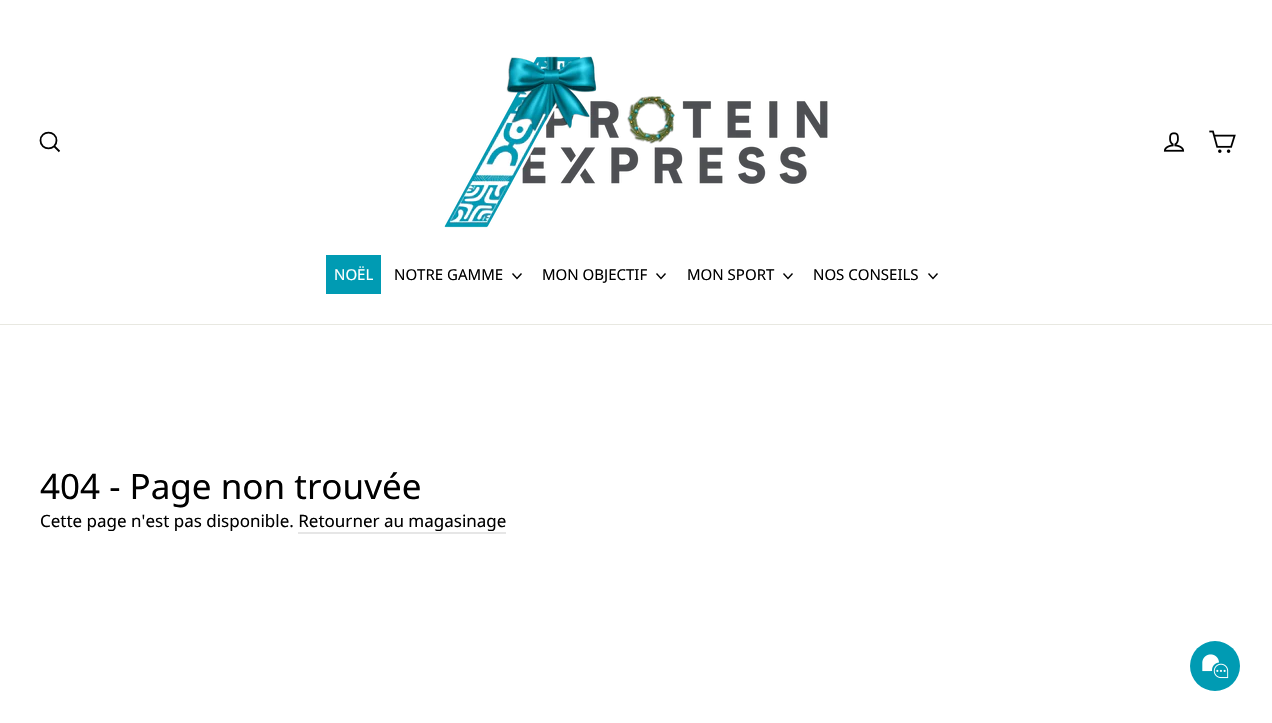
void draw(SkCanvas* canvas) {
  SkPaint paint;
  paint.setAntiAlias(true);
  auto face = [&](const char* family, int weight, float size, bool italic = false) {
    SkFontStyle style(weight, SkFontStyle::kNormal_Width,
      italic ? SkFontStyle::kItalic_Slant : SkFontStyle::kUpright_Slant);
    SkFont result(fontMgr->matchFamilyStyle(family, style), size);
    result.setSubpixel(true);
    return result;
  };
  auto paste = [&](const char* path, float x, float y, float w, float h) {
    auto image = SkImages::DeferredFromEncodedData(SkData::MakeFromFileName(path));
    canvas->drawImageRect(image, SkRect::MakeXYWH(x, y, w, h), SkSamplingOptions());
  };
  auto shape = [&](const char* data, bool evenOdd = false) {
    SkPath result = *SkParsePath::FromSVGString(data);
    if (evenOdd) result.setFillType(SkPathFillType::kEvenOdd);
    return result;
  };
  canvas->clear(0xffffffff);
  paint.setColor(0xffe8e8e1);
  canvas->drawRect(SkRect::MakeXYWH(0, 324, 1272, 1), paint);
  paint.setStroke(true);
  paint.setStrokeWidth(1.8f);
  paint.setColor(0xff000000);
  canvas->drawPath(shape("M56.5 140.5C56.5 151 40.5 151 40.5 140.5C40.5 130 56.5 130 56.5 140.5ZM59.5 151.5L54.5 146.5"), paint);
  paste("img/1.png", 444, 56, 384, 172);
  paste("img/2.png", 1163, 132, 22, 20);
  paste("img/3.png", 1209, 130, 27, 23);
  paint.setStroke(false);
  paint.setColor(0xff009bb3);
  canvas->drawRect(SkRect::MakeXYWH(326, 255, 55, 39), paint);
  paint.setStroke(true);
  paint.setStrokeWidth(1.4f);
  paint.setColor(0xff000000);
  canvas->drawPath(shape("M512.5 273.5L517 278.5L521.5 273.5"), paint);
  canvas->drawPath(shape("M656.5 273.5L661 278.5L665.5 273.5"), paint);
  canvas->drawPath(shape("M783.5 273.5L788 278.5L792.5 273.5"), paint);
  canvas->drawPath(shape("M928.5 273.5L933 278.5L937.5 273.5"), paint);
  paint.setStroke(false);
  paint.setColor(0xffe6e6e6);
  canvas->drawRect(SkRect::MakeXYWH(298, 532, 208, 2), paint);
  paint.setColor(0xff009bb3);
  canvas->drawCircle(1215, 666, 25, paint);
  paste("img/4.png", 1202, 654, 27, 25);
  auto f0 = face("Noto Sans", 400, 15);
  paint.setColor(0xffffffff);
  canvas->drawString("NOËL", 334, 280, f0, paint);
  paint.setColor(0xff000000);
  {
    const struct { const char* s; float x, y; } items[] = {
      {"NOTRE GAMME", 394, 280},
      {"MON OBJECTIF", 542, 280},
      {"MON SPORT", 687, 280},
      {"NOS CONSEILS", 813, 280},
    };
    for (auto [s, x, y] : items) {
      canvas->drawString(s, x, y, f0, paint);
    }
  }
  auto f1 = face("Noto Sans", 400, 35);
  canvas->drawString("404 - Page non trouvée", 40, 499, f1, paint);
  auto f2 = face("Noto Sans", 400, 17);
  canvas->drawString("Cette page n'est pas disponible. Retourner au magasinage", 40, 527, f2, paint);
}
